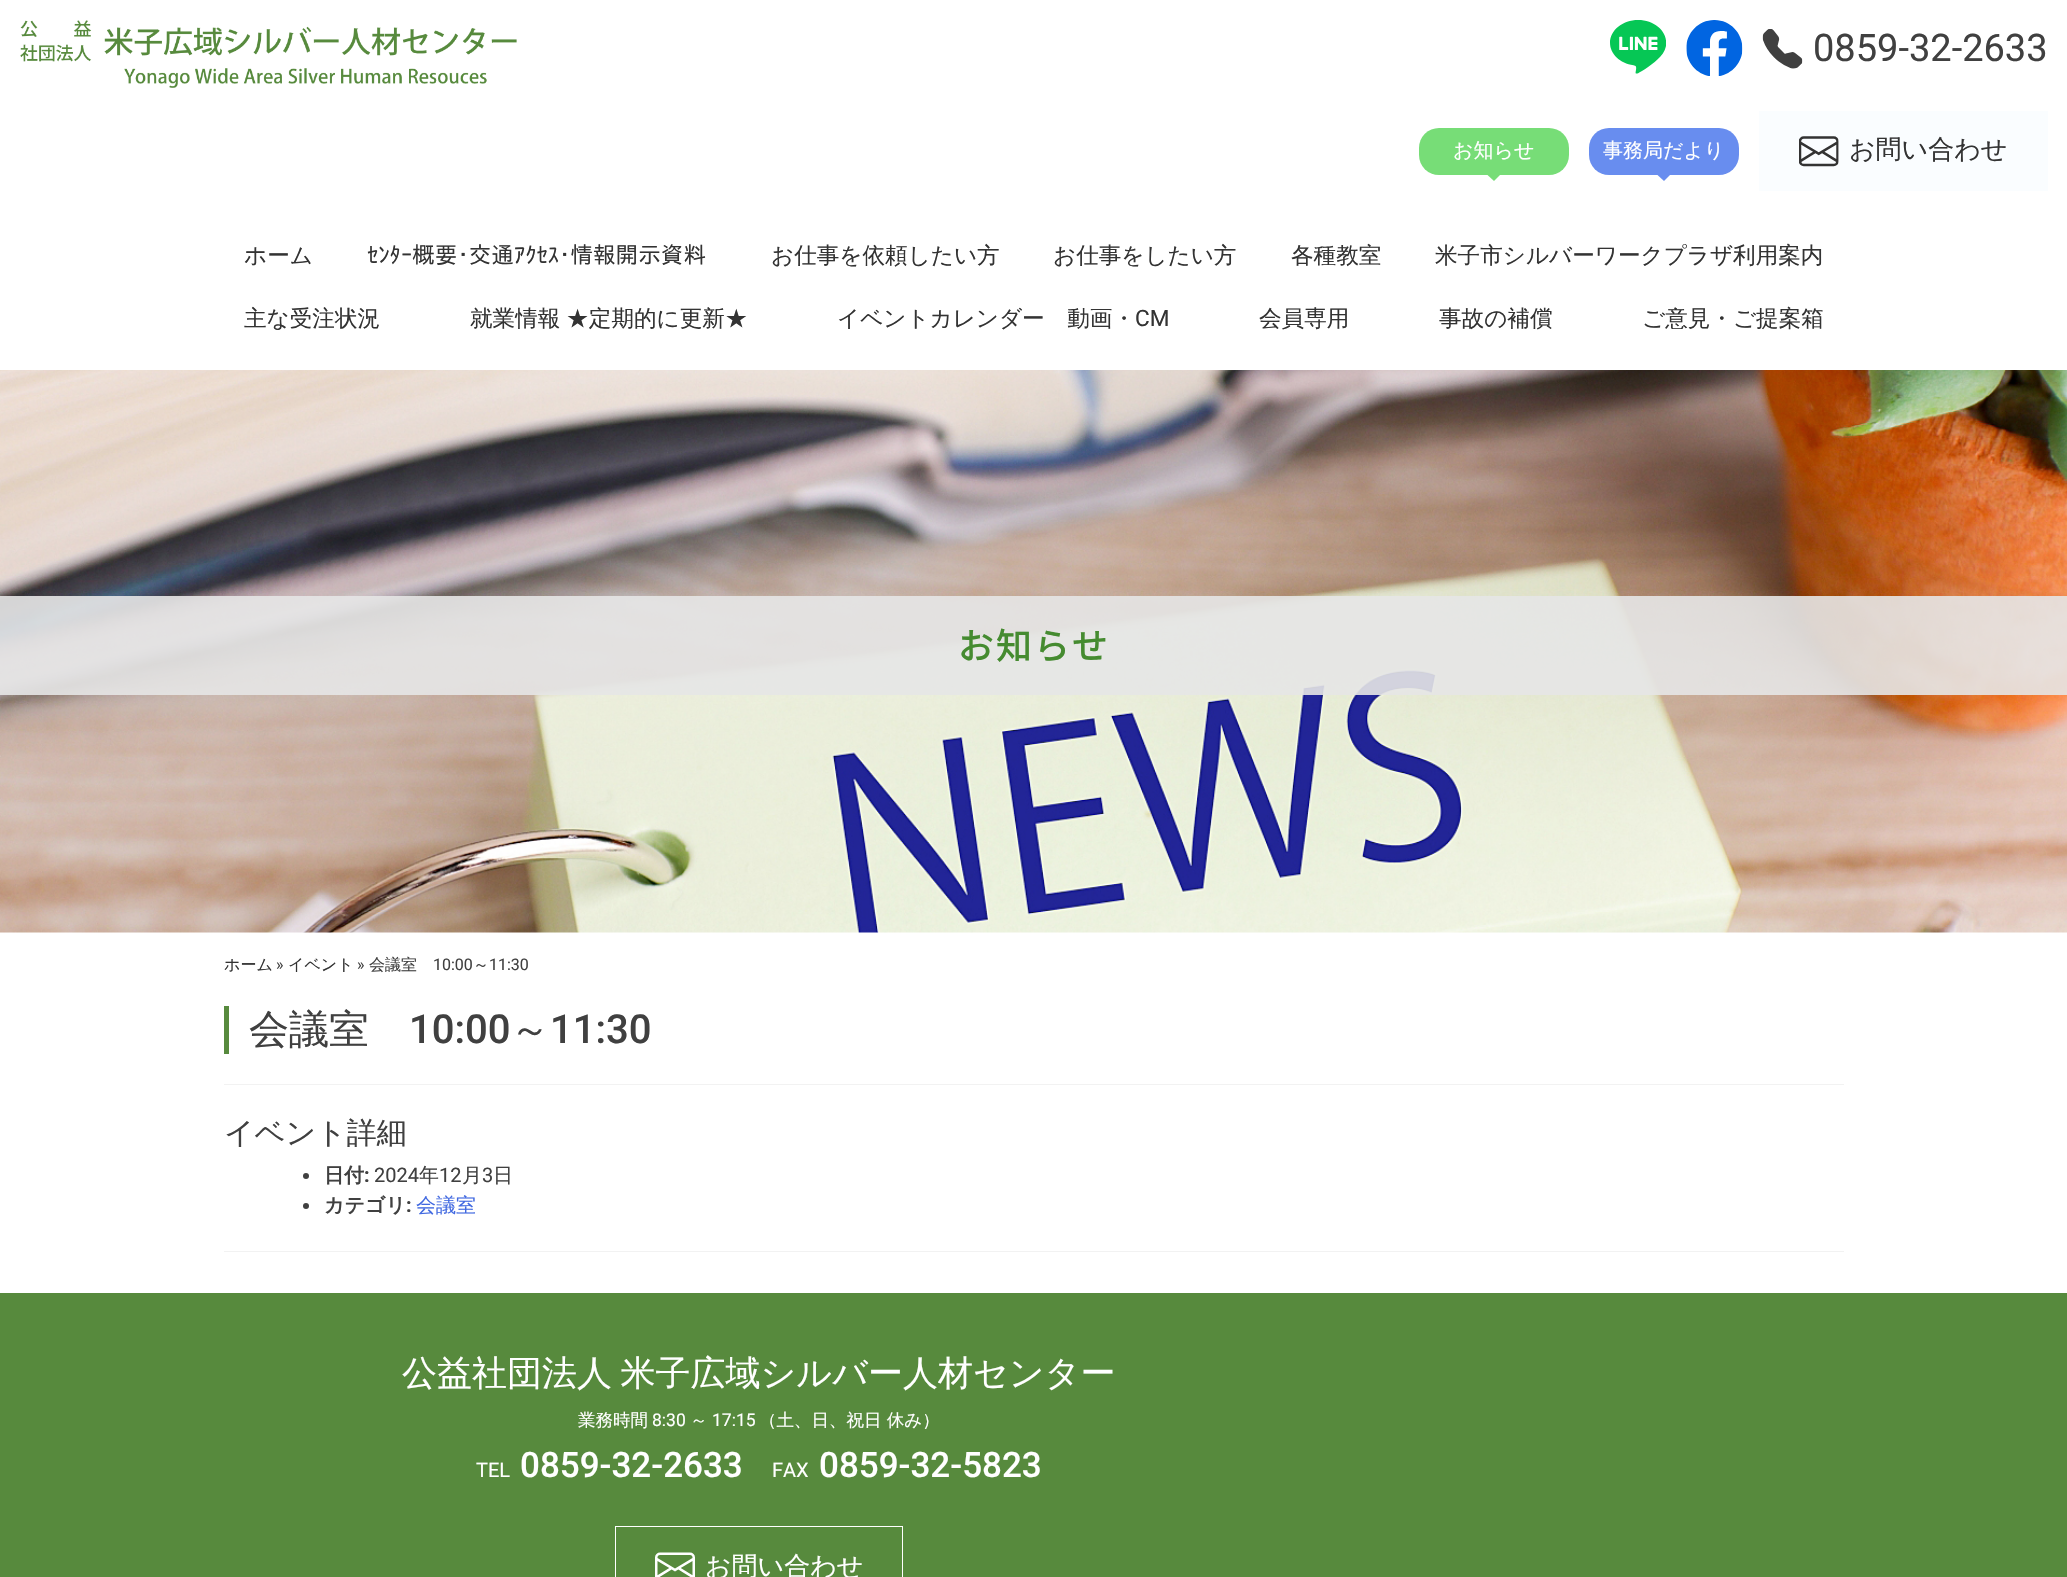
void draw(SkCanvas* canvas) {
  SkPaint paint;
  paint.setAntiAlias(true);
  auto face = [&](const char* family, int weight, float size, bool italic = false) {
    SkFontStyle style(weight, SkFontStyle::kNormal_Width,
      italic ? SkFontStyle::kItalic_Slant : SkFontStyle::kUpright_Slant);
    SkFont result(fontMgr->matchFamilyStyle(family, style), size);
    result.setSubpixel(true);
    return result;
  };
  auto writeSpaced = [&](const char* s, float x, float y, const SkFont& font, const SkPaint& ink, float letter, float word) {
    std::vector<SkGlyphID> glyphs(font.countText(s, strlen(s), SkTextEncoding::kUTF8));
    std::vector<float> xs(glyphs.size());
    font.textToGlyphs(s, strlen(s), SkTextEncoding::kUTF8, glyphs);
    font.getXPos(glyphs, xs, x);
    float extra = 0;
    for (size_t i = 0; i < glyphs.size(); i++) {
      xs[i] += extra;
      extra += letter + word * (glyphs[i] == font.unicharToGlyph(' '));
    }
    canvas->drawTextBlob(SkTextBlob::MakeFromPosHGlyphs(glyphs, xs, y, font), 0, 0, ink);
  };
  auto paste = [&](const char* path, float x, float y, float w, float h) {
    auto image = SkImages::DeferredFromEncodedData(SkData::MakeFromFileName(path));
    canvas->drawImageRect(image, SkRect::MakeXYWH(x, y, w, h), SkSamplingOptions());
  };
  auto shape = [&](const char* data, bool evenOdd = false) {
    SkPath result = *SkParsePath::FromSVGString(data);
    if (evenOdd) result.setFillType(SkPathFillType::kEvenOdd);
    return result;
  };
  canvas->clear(0xffffffff);
  paste("img/1.png", 20, 20, 497, 68);
  paste("img/2.png", 1610, 20, 56, 54);
  paste("img/3.png", 1686, 20, 57, 56);
  paste("img/4.png", 1762, 29, 41, 40);
  paint.setColor(0xff77dd77);
  canvas->drawRoundRect(SkRect::MakeXYWH(1419, 128, 150, 47), 20, 20, paint);
  canvas->drawPath(shape("M1487.5 175H1500L1494 181Z"), paint);
  paint.setColor(0xff688def);
  canvas->drawRoundRect(SkRect::MakeXYWH(1589, 128, 150, 47), 20, 20, paint);
  canvas->drawPath(shape("M1657.5 175H1670L1664 181Z"), paint);
  paint.setColor(0xfffafdff);
  canvas->drawRect(SkRect::MakeXYWH(1759, 111, 289, 80), paint);
  paste("img/5.png", 1799, 136, 40, 31);
  paste("img/6.png", 0, 370, 2067, 563);
  {
    const struct { float x, y, w, h; SkColor color; } items[] = {
      {0, 596, 2067, 99, 0xe6e6e6e6},
      {224, 1006, 5, 48, 0xff578a3d},
      {224, 1084, 1620, 1, 0xfff2f2f2},
    };
    for (auto [x, y, w, h, color] : items) {
      paint.setColor(color);
      canvas->drawRect(SkRect::MakeXYWH(x, y, w, h), paint);
    }
  }
  paint.setColor(0xff404040);
  canvas->drawCircle(306, 1176, 3, paint);
  canvas->drawCircle(306, 1206, 3, paint);
  paint.setColor(0xfff2f2f2);
  canvas->drawRect(SkRect::MakeXYWH(224, 1251, 1620, 1), paint);
  paint.setColor(0xff578a3d);
  canvas->drawRect(SkRect::MakeXYWH(0, 1293, 2067, 284), paint);
  paint.setStroke(true);
  paint.setStrokeWidth(1);
  paint.setColor(0xffffffff);
  canvas->drawRect(SkRect::MakeXYWH(615.5f, 1526.5f, 287, 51), paint);
  paste("img/7.png", 655, 1552, 40, 25);
  auto f0 = face("Roboto", 400, 38);
  paint.setStroke(false);
  paint.setColor(0xff404040);
  canvas->drawString("0859-32-2633", 1813, 61, f0, paint);
  auto f1 = face("WenQuanYi Zen Hei", 500, 20);
  paint.setColor(0xffffffff);
  canvas->drawString("お知らせ", 1453, 157, f1, paint);
  canvas->drawString("事務局だより", 1603, 157, f1, paint);
  auto f2 = face("WenQuanYi Zen Hei", 500, 26);
  paint.setColor(0xff333333);
  canvas->drawString("お問い合わせ", 1849, 158, f2, paint);
  auto f3 = face("WenQuanYi Zen Hei", 500, 22.6f);
  canvas->drawString("ホーム", 244, 263, f3, paint);
  auto f4 = face("IPAPGothic", 400, 22.6f);
  canvas->drawString("ｾﾝﾀｰ概要・交通ｱｸｾｽ・情報開示資料", 367, 263, f4, paint);
  {
    const struct { const char* s; float x, y; } items[] = {
      {"お仕事を依頼したい方", 771, 263},
      {"お仕事をしたい方", 1053, 263},
      {"各種教室", 1291, 263},
      {"米子市シルバーワークプラザ利用案内", 1435, 263},
      {"主な受注状況", 244, 326},
    };
    for (auto [s, x, y] : items) {
      canvas->drawString(s, x, y, f3, paint);
    }
  }
  writeSpaced("就業情報 ★定期的に更新★", 470, 326, f3, paint, 0, -1);
  canvas->drawString("イベントカレンダー　動画・", 837, 326, f3, paint);
  auto f5 = face("Roboto", 400, 22.6f);
  canvas->drawString("CM", 1135, 326, f5, paint);
  {
    const struct { const char* s; float x, y; } items[] = {
      {"会員専用", 1259, 326},
      {"事故の補償", 1439, 326},
      {"ご意見・ご提案箱", 1642, 326},
    };
    for (auto [s, x, y] : items) {
      canvas->drawString(s, x, y, f3, paint);
    }
  }
  auto f6 = face("Noto Sans JP", 500, 36);
  paint.setColor(0xff458b30);
  writeSpaced("お知らせ", 958, 659, f6, paint, 2, 0);
  auto f7 = face("WenQuanYi Zen Hei", 500, 16);
  paint.setColor(0xff333333);
  canvas->drawString("ホーム", 224, 970, f7, paint);
  auto f8 = face("Roboto", 400, 16);
  paint.setColor(0xff404040);
  canvas->drawString("»", 276, 970, f8, paint);
  paint.setColor(0xff333333);
  canvas->drawString("イベント", 288, 970, f7, paint);
  paint.setColor(0xff404040);
  canvas->drawString("»", 357, 970, f8, paint);
  canvas->drawString("会議室", 369, 970, f7, paint);
  canvas->drawString("10:00", 433, 970, f8, paint);
  canvas->drawString("～", 473, 970, f7, paint);
  canvas->drawString("11:30", 489, 970, f8, paint);
  auto f9 = face("WenQuanYi Zen Hei", 500, 40);
  canvas->drawString("会議室", 249, 1043, f9, paint);
  auto f10 = face("Roboto", 500, 40);
  canvas->drawString("10:00", 409, 1043, f10, paint);
  canvas->drawString("～", 510, 1043, f9, paint);
  canvas->drawString("11:30", 550, 1043, f10, paint);
  auto f11 = face("WenQuanYi Zen Hei", 500, 30);
  canvas->drawString("イベント詳細", 224, 1143, f11, paint);
  auto f12 = face("WenQuanYi Zen Hei", 700, 20);
  canvas->drawString("日付", 324, 1182, f12, paint);
  auto f13 = face("Roboto", 700, 20);
  canvas->drawString(":", 364, 1182, f13, paint);
  auto f14 = face("Roboto", 400, 20);
  canvas->drawString("2024", 374, 1182, f14, paint);
  canvas->drawString("年", 419, 1182, f1, paint);
  canvas->drawString("12", 439, 1182, f14, paint);
  canvas->drawString("月", 462, 1182, f1, paint);
  canvas->drawString("3", 482, 1182, f14, paint);
  canvas->drawString("日", 493, 1182, f1, paint);
  canvas->drawString("カテゴリ", 324, 1212, f12, paint);
  canvas->drawString(":", 406, 1212, f13, paint);
  paint.setColor(0xff4169e1);
  canvas->drawString("会議室", 416, 1212, f1, paint);
  auto f15 = face("WenQuanYi Zen Hei", 500, 35);
  paint.setColor(0xffffffff);
  writeSpaced("公益社団法人 米子広域シルバー人材センター", 402, 1385, f15, paint, 0, -2);
  auto f16 = face("WenQuanYi Zen Hei", 500, 17.5f);
  canvas->drawString("業務時間", 578, 1426, f16, paint);
  auto f17 = face("Roboto", 400, 17.5f);
  canvas->drawString("8:30", 652, 1426, f17, paint);
  canvas->drawString("～", 690, 1426, f16, paint);
  canvas->drawString("17:15", 712, 1426, f17, paint);
  canvas->drawString("（土、日、祝日 休み）", 759, 1426, f16, paint);
  canvas->drawString("TEL", 476, 1477, f14, paint);
  auto f18 = face("Roboto", 500, 35);
  canvas->drawString("0859-32-2633", 520, 1477, f18, paint);
  canvas->drawString("FAX", 772, 1477, f14, paint);
  canvas->drawString("0859-32-5823", 819, 1477, f18, paint);
  canvas->drawString("お問い合わせ", 705, 1575, f2, paint);
}
